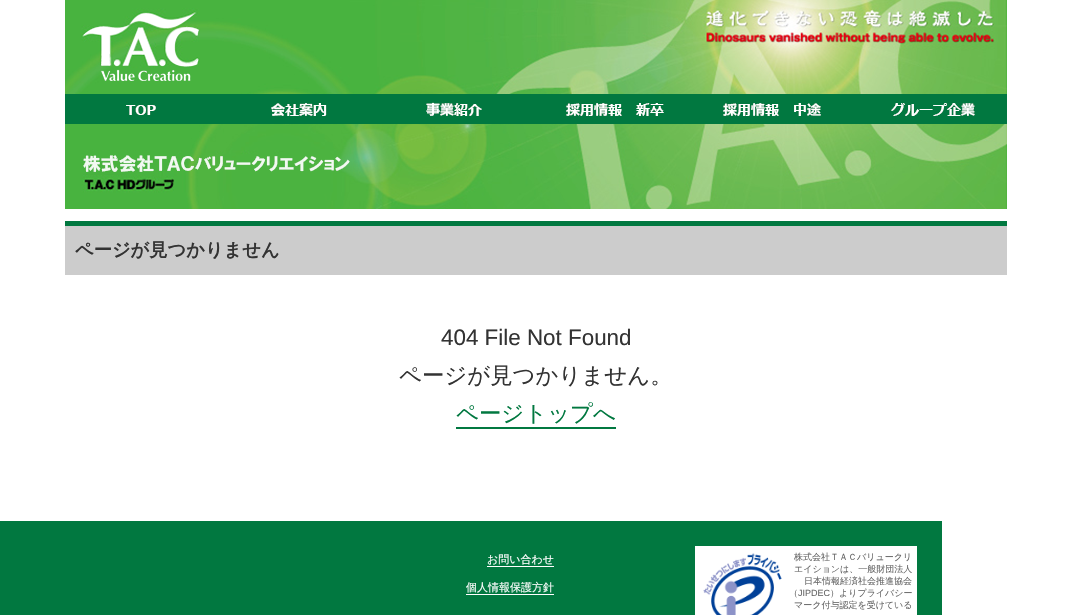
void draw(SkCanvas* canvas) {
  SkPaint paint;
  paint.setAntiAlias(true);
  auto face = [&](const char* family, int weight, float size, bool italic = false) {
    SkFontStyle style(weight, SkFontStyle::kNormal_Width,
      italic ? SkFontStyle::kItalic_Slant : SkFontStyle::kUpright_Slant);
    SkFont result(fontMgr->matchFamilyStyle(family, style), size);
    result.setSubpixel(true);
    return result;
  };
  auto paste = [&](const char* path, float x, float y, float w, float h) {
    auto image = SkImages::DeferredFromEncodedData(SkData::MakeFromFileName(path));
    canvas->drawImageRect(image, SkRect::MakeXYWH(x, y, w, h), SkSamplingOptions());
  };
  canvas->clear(0xffffffff);
  paste("img/1.png", 65, 0, 942, 209);
  paint.setColor(0xffffffff);
  canvas->drawRect(SkRect::MakeXYWH(65, 94, 942, 30), paint);
  paste("img/2.png", 65, 94, 157, 30);
  paste("img/3.png", 222, 94, 157, 30);
  paste("img/4.png", 379, 94, 157, 30);
  paste("img/5.png", 536, 94, 157, 30);
  paste("img/6.png", 693, 94, 157, 30);
  paste("img/7.png", 850, 94, 157, 30);
  {
    const struct { float x, y, w, h; SkColor color; } items[] = {
      {65, 226, 942, 49, 0xffcccccc},
      {65, 221, 942, 5, 0xff017840},
      {456, 427, 160, 2, 0xff017840},
      {0, 521, 942, 94, 0xff017840},
      {487, 566, 67, 1, 0xffffffff},
      {466, 594, 88, 1, 0xffffffff},
      {695, 546, 222, 69, 0xffffffff},
    };
    for (auto [x, y, w, h, color] : items) {
      paint.setColor(color);
      canvas->drawRect(SkRect::MakeXYWH(x, y, w, h), paint);
    }
  }
  paste("img/8.png", 703, 553, 79, 62);
  auto f0 = face("WenQuanYi Zen Hei", 700, 18.25f);
  paint.setColor(0xff333333);
  canvas->drawString("ページが見つかりません", 75, 256, f0, paint);
  auto f1 = face("Liberation Sans", 400, 22.4f);
  canvas->drawString("404 File Not Found", 441, 345, f1, paint);
  auto f2 = face("WenQuanYi Zen Hei", 500, 22.4f);
  canvas->drawString("ページが見つかりません。", 399, 383, f2, paint);
  paint.setColor(0xff017840);
  canvas->drawString("ページトップへ", 456, 421, f2, paint);
  auto f3 = face("WenQuanYi Zen Hei", 500, 11);
  paint.setColor(0xffffffff);
  canvas->drawString("お問い合わせ", 487, 563, f3, paint);
  canvas->drawString("個人情報保護方針", 466, 591, f3, paint);
  auto f4 = face("WenQuanYi Zen Hei", 500, 9);
  paint.setColor(0xff666666);
  {
    const struct { const char* s; float x, y; } items[] = {
      {"株式会社ＴＡＣバリュークリ", 794, 560},
      {"エイションは、一般財団法人", 794, 572},
      {"日本情報経済社会推進協会", 804, 584},
      {"（", 789, 596},
    };
    for (auto [s, x, y] : items) {
      canvas->drawString(s, x, y, f4, paint);
    }
  }
  auto f5 = face("Liberation Sans", 400, 9);
  canvas->drawString("JIPDEC", 798, 596, f5, paint);
  canvas->drawString("）よりプライバシー", 830, 596, f4, paint);
  canvas->drawString("マーク付与認定を受けている", 794, 608, f4, paint);
}
